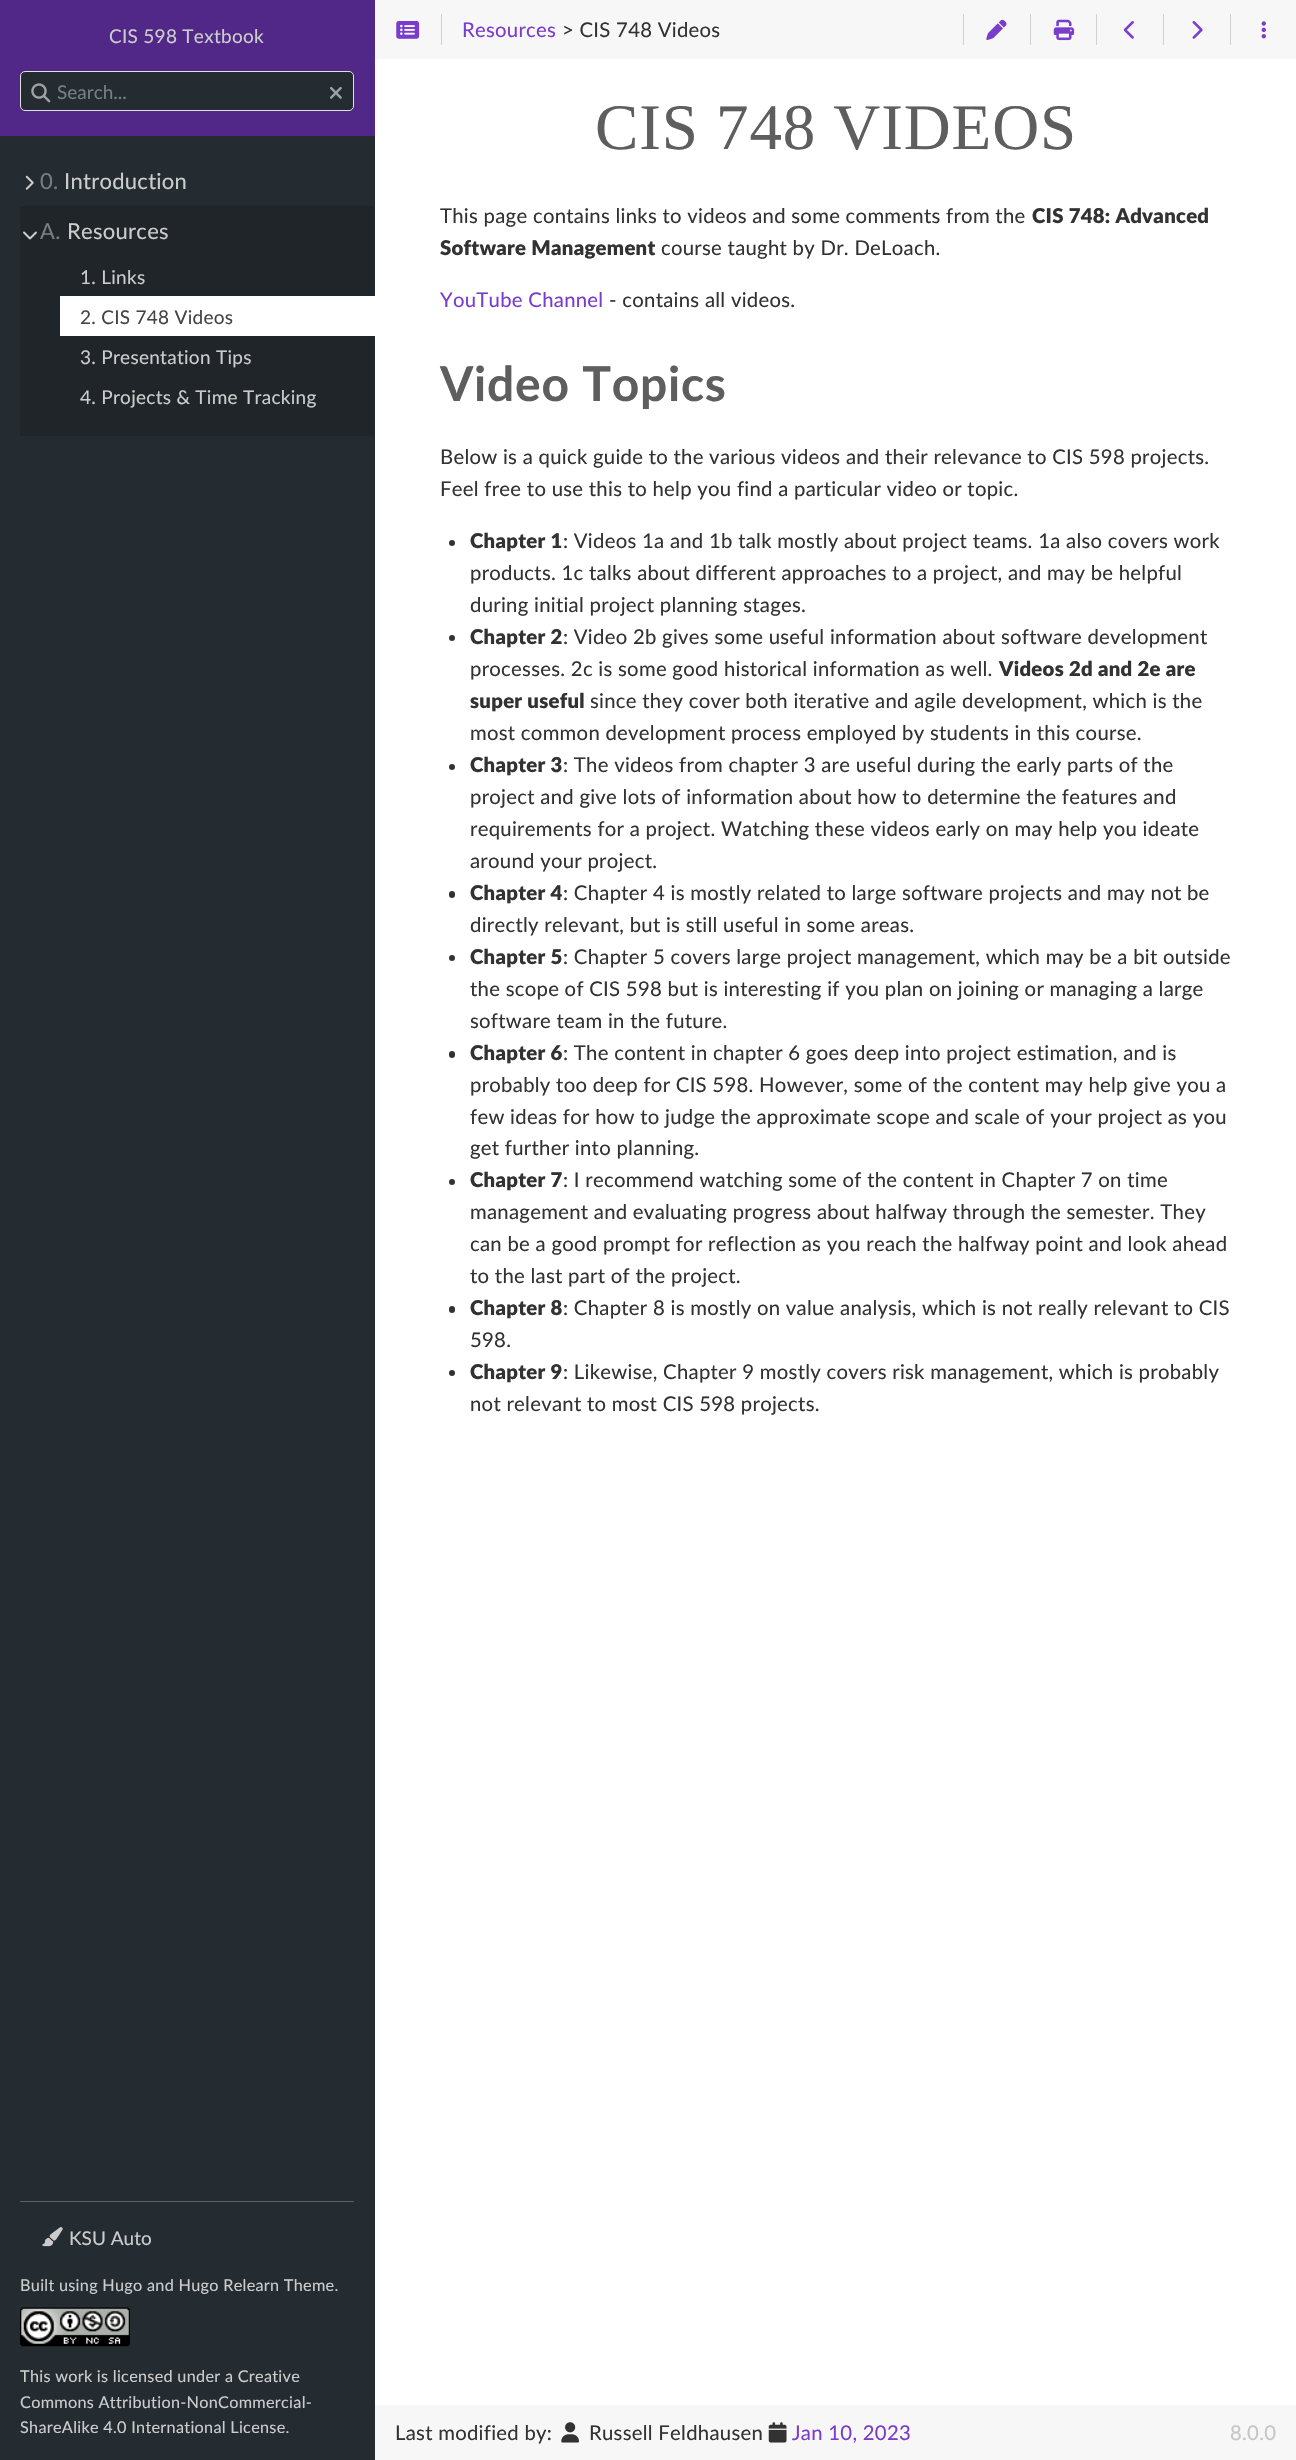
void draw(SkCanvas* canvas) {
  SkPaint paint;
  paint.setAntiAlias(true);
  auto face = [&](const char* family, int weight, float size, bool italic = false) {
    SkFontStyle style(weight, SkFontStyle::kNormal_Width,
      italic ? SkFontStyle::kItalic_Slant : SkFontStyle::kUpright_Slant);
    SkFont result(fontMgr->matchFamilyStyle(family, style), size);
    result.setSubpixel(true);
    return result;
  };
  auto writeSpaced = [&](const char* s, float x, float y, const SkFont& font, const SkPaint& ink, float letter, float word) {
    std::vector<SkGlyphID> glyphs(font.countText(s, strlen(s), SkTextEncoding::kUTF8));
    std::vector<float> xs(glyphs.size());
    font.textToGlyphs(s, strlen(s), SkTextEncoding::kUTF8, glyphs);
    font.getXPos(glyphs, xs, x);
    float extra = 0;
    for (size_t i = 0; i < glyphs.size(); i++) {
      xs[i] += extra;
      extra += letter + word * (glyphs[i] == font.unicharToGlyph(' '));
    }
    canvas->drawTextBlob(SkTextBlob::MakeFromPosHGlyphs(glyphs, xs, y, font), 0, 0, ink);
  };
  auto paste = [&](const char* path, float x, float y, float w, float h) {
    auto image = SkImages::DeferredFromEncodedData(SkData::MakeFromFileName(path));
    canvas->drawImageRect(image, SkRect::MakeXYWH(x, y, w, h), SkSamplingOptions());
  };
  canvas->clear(0xffffffff);
  paint.setColor(0xff252c31);
  canvas->drawRect(SkRect::MakeXYWH(0, 136, 375, 2324), paint);
  paint.setColor(0xff512888);
  canvas->drawRect(SkRect::MakeXYWH(0, 0, 375, 136), paint);
  paint.setColor(0xff252c31);
  canvas->drawRoundRect(SkRect::MakeXYWH(20.5f, 71.5f, 333, 39), 4.5f, 4.5f, paint);
  paint.setStroke(true);
  paint.setStrokeWidth(1);
  paint.setColor(0xffe0e0e0);
  canvas->drawRoundRect(SkRect::MakeXYWH(20.5f, 71.5f, 333, 39), 4.5f, 4.5f, paint);
  paste("img/1.png", 31, 83, 20, 20);
  paste("img/2.png", 330, 86, 12, 13);
  paste("img/3.png", 25, 175, 9, 15);
  paint.setStroke(false);
  paint.setColor(0xff1f2529);
  canvas->drawRect(SkRect::MakeXYWH(20, 206, 354, 230), paint);
  paste("img/4.png", 23, 231, 14, 9);
  paint.setColor(0xffffffff);
  canvas->drawRect(SkRect::MakeXYWH(60, 296, 315, 40), paint);
  paint.setColor(0xff606060);
  canvas->drawRect(SkRect::MakeXYWH(20, 2201, 334, 1), paint);
  paste("img/5.png", 42, 2227, 21, 20);
  paste("img/6.png", 20, 2307, 110, 40);
  paint.setColor(0xfff7f7f7);
  canvas->drawRect(SkRect::MakeXYWH(375, 0, 921, 59), paint);
  paint.setColor(0xffd1d1d1);
  canvas->drawRect(SkRect::MakeXYWH(441, 14, 1, 31), paint);
  paste("img/7.png", 396, 21, 24, 18);
  canvas->drawRect(SkRect::MakeXYWH(963, 14, 1, 31), paint);
  paste("img/8.png", 986, 19, 21, 21);
  canvas->drawRect(SkRect::MakeXYWH(1030, 14, 1, 31), paint);
  paste("img/9.png", 1053, 19, 22, 22);
  canvas->drawRect(SkRect::MakeXYWH(1096, 14, 1, 31), paint);
  paste("img/10.png", 1123, 21, 11, 18);
  canvas->drawRect(SkRect::MakeXYWH(1163, 14, 1, 31), paint);
  paste("img/11.png", 1192, 21, 11, 18);
  canvas->drawRect(SkRect::MakeXYWH(1230, 14, 1, 31), paint);
  paste("img/12.png", 1261, 21, 5, 18);
  paint.setColor(0xff323232);
  canvas->drawCircle(452, 543, 3, paint);
  canvas->drawCircle(452, 638, 3, paint);
  canvas->drawCircle(452, 767, 3, paint);
  canvas->drawRoundRect(SkRect::MakeXYWH(449, 891, 6, 7), 3, 3, paint);
  canvas->drawCircle(452, 958, 3, paint);
  canvas->drawRoundRect(SkRect::MakeXYWH(449, 1051, 6, 7), 3, 3, paint);
  canvas->drawCircle(452, 1182, 3, paint);
  canvas->drawRoundRect(SkRect::MakeXYWH(449, 1306, 6, 7), 3, 3, paint);
  canvas->drawCircle(452, 1373, 3, paint);
  paint.setColor(0xfff7f7f7);
  canvas->drawRect(SkRect::MakeXYWH(375, 2405, 921, 55), paint);
  paste("img/13.png", 561, 2422, 18, 21);
  paste("img/14.png", 768, 2422, 19, 21);
  auto f0 = face("Lato", 400, 19);
  paint.setColor(0xffcccccc);
  writeSpaced("CIS 598 Textbook", 109, 43, f0, paint, 0.28f, 0);
  paint.setColor(0xff797d80);
  canvas->drawString("Search...", 57, 99, f0, paint);
  auto f1 = face("Lato", 400, 22);
  writeSpaced("0.", 40, 189, f1, paint, 0.28f, 0);
  paint.setColor(0xffcccccc);
  writeSpaced("Introduction", 64, 189, f1, paint, 0.28f, 0);
  paint.setColor(0xff797d80);
  writeSpaced("A.", 40, 239, f1, paint, 0.28f, 0);
  paint.setColor(0xffcccccc);
  writeSpaced("Resources", 67, 239, f1, paint, 0.28f, 0);
  writeSpaced("1. Links", 80, 284, f0, paint, 0.28f, 0);
  paint.setColor(0xff444444);
  writeSpaced("2. CIS 748 Videos", 80, 324, f0, paint, 0.28f, 0);
  paint.setColor(0xffcccccc);
  writeSpaced("3. Presentation Tips", 80, 364, f0, paint, 0.28f, 0);
  writeSpaced("4. Projects & Time Tracking", 80, 404, f0, paint, 0.28f, 0);
  canvas->drawString("KSU Auto", 69, 2245, f0, paint);
  auto f2 = face("Lato", 400, 16.25f);
  {
    const struct { const char* s; float x, y; } items[] = {
      {"Built using Hugo and Hugo Relearn Theme.", 20, 2291},
      {"This work is licensed under a Creative", 20, 2382},
      {"Commons Attribution-NonCommercial-", 20, 2408},
      {"ShareAlike 4.0 International License.", 20, 2433},
    };
    for (auto [s, x, y] : items) {
      writeSpaced(s, x, y, f2, paint, 0.28f, 0);
    }
  }
  auto f3 = face("Lato", 400, 20.3f);
  paint.setColor(0xff793ccc);
  writeSpaced("Resources", 462, 37, f3, paint, 0.28f, 0);
  paint.setColor(0xff323232);
  writeSpaced("> CIS 748 Videos", 562, 37, f3, paint, 0.28f, 0);
  auto f4 = face("Liberation Serif", 400, 65);
  paint.setColor(0xff5e5e5e);
  writeSpaced("CIS 748 VIDEOS", 595, 149, f4, paint, 0.9f, 0);
  paint.setColor(0xff323232);
  writeSpaced("This page contains links to videos and some comments from the", 440, 223, f3, paint, 0.28f, 0);
  auto f5 = face("Lato", 800, 20.3f);
  writeSpaced("CIS 748: Advanced", 1032, 223, f5, paint, 0.28f, 0);
  writeSpaced("Software Management", 440, 255, f5, paint, 0.28f, 0);
  writeSpaced("course taught by Dr. DeLoach.", 661, 255, f3, paint, 0.28f, 0);
  paint.setColor(0xff793ccc);
  writeSpaced("YouTube Channel", 440, 307, f3, paint, 0.28f, 0);
  paint.setColor(0xff323232);
  writeSpaced("- contains all videos.", 609, 307, f3, paint, 0.28f, 0);
  auto f6 = face("Lato", 700, 48);
  paint.setColor(0xff5e5e5e);
  writeSpaced("Video Topics", 440, 401, f6, paint, 0.75f, 0);
  paint.setColor(0xff323232);
  writeSpaced("Below is a quick guide to the various videos and their relevance to CIS 598 projects.", 440, 464, f3, paint, 0.28f, 0);
  writeSpaced("Feel free to use this to help you find a particular video or topic.", 440, 496, f3, paint, 0.28f, 0);
  writeSpaced("Chapter 1", 470, 548, f5, paint, 0.28f, 0);
  {
    const struct { const char* s; float x, y; } items[] = {
      {": Videos 1a and 1b talk mostly about project teams. 1a also covers work", 563, 548},
      {"products. 1c talks about different approaches to a project, and may be helpful", 470, 580},
      {"during initial project planning stages.", 470, 612},
    };
    for (auto [s, x, y] : items) {
      writeSpaced(s, x, y, f3, paint, 0.28f, 0);
    }
  }
  writeSpaced("Chapter 2", 470, 644, f5, paint, 0.28f, 0);
  writeSpaced(": Video 2b gives some useful information about software development", 563, 644, f3, paint, 0.28f, 0);
  writeSpaced("processes. 2c is some good historical information as well.", 470, 676, f3, paint, 0.28f, 0);
  writeSpaced("Videos 2d and 2e are", 999, 676, f5, paint, 0.28f, 0);
  writeSpaced("super useful", 470, 708, f5, paint, 0.28f, 0);
  writeSpaced("since they cover both iterative and agile development, which is the", 590, 708, f3, paint, 0.28f, 0);
  writeSpaced("most common development process employed by students in this course.", 470, 740, f3, paint, 0.28f, 0);
  writeSpaced("Chapter 3", 470, 772, f5, paint, 0.28f, 0);
  {
    const struct { const char* s; float x, y; } items[] = {
      {": The videos from chapter 3 are useful during the early parts of the", 563, 772},
      {"project and give lots of information about how to determine the features and", 470, 804},
      {"requirements for a project. Watching these videos early on may help you ideate", 470, 836},
      {"around your project.", 470, 868},
    };
    for (auto [s, x, y] : items) {
      writeSpaced(s, x, y, f3, paint, 0.28f, 0);
    }
  }
  writeSpaced("Chapter 4", 470, 900, f5, paint, 0.28f, 0);
  writeSpaced(": Chapter 4 is mostly related to large software projects and may not be", 563, 900, f3, paint, 0.28f, 0);
  writeSpaced("directly relevant, but is still useful in some areas.", 470, 932, f3, paint, 0.28f, 0);
  writeSpaced("Chapter 5", 470, 964, f5, paint, 0.28f, 0);
  {
    const struct { const char* s; float x, y; } items[] = {
      {": Chapter 5 covers large project management, which may be a bit outside", 563, 964},
      {"the scope of CIS 598 but is interesting if you plan on joining or managing a large", 470, 996},
      {"software team in the future.", 470, 1028},
    };
    for (auto [s, x, y] : items) {
      writeSpaced(s, x, y, f3, paint, 0.28f, 0);
    }
  }
  writeSpaced("Chapter 6", 470, 1060, f5, paint, 0.28f, 0);
  {
    const struct { const char* s; float x, y; } items[] = {
      {": The content in chapter 6 goes deep into project estimation, and is", 563, 1060},
      {"probably too deep for CIS 598. However, some of the content may help give you a", 470, 1092},
      {"few ideas for how to judge the approximate scope and scale of your project as you", 470, 1124},
      {"get further into planning.", 470, 1155},
    };
    for (auto [s, x, y] : items) {
      writeSpaced(s, x, y, f3, paint, 0.28f, 0);
    }
  }
  writeSpaced("Chapter 7", 470, 1187, f5, paint, 0.28f, 0);
  {
    const struct { const char* s; float x, y; } items[] = {
      {": I recommend watching some of the content in Chapter 7 on time", 563, 1187},
      {"management and evaluating progress about halfway through the semester. They", 470, 1219},
      {"can be a good prompt for reflection as you reach the halfway point and look ahead", 470, 1251},
      {"to the last part of the project.", 470, 1283},
    };
    for (auto [s, x, y] : items) {
      writeSpaced(s, x, y, f3, paint, 0.28f, 0);
    }
  }
  writeSpaced("Chapter 8", 470, 1315, f5, paint, 0.28f, 0);
  writeSpaced(": Chapter 8 is mostly on value analysis, which is not really relevant to CIS", 563, 1315, f3, paint, 0.28f, 0);
  writeSpaced("598.", 470, 1347, f3, paint, 0.28f, 0);
  writeSpaced("Chapter 9", 470, 1379, f5, paint, 0.28f, 0);
  {
    const struct { const char* s; float x, y; } items[] = {
      {": Likewise, Chapter 9 mostly covers risk management, which is probably", 563, 1379},
      {"not relevant to most CIS 598 projects.", 470, 1411},
      {"Last modified by:", 395, 2440},
      {"Russell Feldhausen", 589, 2440},
    };
    for (auto [s, x, y] : items) {
      writeSpaced(s, x, y, f3, paint, 0.28f, 0);
    }
  }
  paint.setColor(0xff793ccc);
  writeSpaced("Jan 10, 2023", 792, 2440, f3, paint, 0.28f, 0);
  paint.setColor(0xffc6c6c6);
  writeSpaced("8.0.0", 1230, 2440, f3, paint, 0.28f, 0);
}
